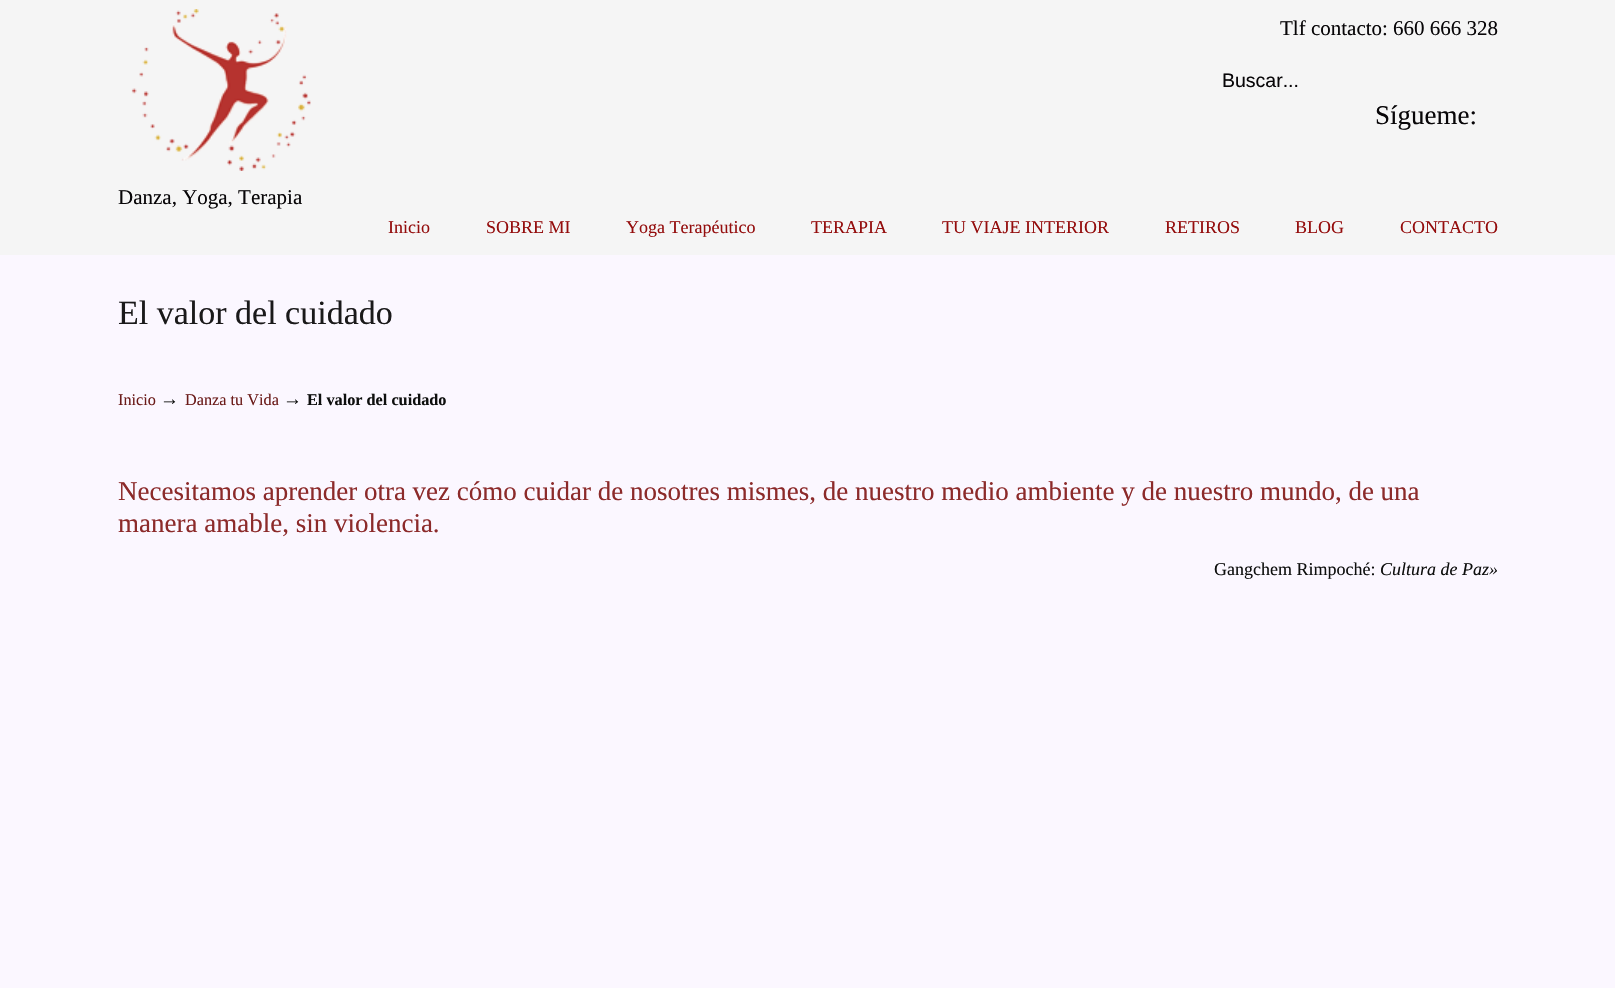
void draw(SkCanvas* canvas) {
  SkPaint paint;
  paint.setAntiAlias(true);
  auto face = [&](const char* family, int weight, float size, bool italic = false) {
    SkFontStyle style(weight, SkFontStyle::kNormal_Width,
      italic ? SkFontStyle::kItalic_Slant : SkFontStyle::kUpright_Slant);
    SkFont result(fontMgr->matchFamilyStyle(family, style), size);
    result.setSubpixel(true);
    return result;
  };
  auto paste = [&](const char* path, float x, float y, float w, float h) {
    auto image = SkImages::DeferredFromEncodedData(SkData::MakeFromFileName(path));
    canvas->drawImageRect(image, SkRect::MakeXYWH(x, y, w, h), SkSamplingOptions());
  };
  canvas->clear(0xfff5f5f5);
  paste("img/1.png", 131, 9, 180, 162);
  paint.setColor(0xfffbf7ff);
  canvas->drawRect(SkRect::MakeXYWH(0, 255, 1615, 733), paint);
  auto f0 = face("Liberation Serif", 400, 21);
  paint.setColor(0xff080608);
  canvas->drawString("Tlf contacto: 660 666 328", 1280, 35, f0, paint);
  auto f1 = face("Liberation Sans", 400, 19.5f);
  canvas->drawString("Buscar...", 1222, 87, f1, paint);
  auto f2 = face("Liberation Serif", 400, 27);
  canvas->drawString("Sígueme:", 1375, 124, f2, paint);
  canvas->drawString("Danza, Yoga, Terapia", 118, 204, f0, paint);
  auto f3 = face("Liberation Serif", 400, 18);
  paint.setColor(0xff940d0d);
  {
    const struct { const char* s; float x, y; } items[] = {
      {"Inicio", 388, 233},
      {"SOBRE MI", 486, 233},
      {"Yoga Terapéutico", 626, 233},
      {"TERAPIA", 811, 233},
      {"TU VIAJE INTERIOR", 942, 233},
      {"RETIROS", 1165, 233},
      {"BLOG", 1295, 233},
      {"CONTACTO", 1400, 233},
    };
    for (auto [s, x, y] : items) {
      canvas->drawString(s, x, y, f3, paint);
    }
  }
  auto f4 = face("Liberation Serif", 400, 34);
  paint.setColor(0xff1a191a);
  canvas->drawString("El valor del cuidado", 118, 324, f4, paint);
  auto f5 = face("Liberation Serif", 400, 16.25f);
  paint.setColor(0xff6b1b19);
  canvas->drawString("Inicio", 118, 405, f5, paint);
  auto f6 = face("Liberation Serif", 400, 19);
  paint.setColor(0xff0e0f0e);
  canvas->drawString("→", 160, 405, f6, paint);
  paint.setColor(0xff6b1b19);
  canvas->drawString("Danza tu Vida", 185, 405, f5, paint);
  paint.setColor(0xff0e0f0e);
  canvas->drawString("→", 283, 405, f6, paint);
  auto f7 = face("Liberation Serif", 700, 16.25f);
  canvas->drawString("El valor del cuidado", 307, 405, f7, paint);
  paint.setColor(0xff8c2a2a);
  canvas->drawString("Necesitamos aprender otra vez cómo cuidar de nosotres mismes, de nuestro medio ambiente y de nuestro mundo, de una", 118, 500, f2, paint);
  canvas->drawString("manera amable, sin violencia.", 118, 532, f2, paint);
  paint.setColor(0xff0e0f0e);
  canvas->drawString("Gangchem Rimpoché:", 1214, 575, f3, paint);
  auto f8 = face("Liberation Serif", 400, 18, true);
  canvas->drawString("Cultura de Paz»", 1380, 575, f8, paint);
}
